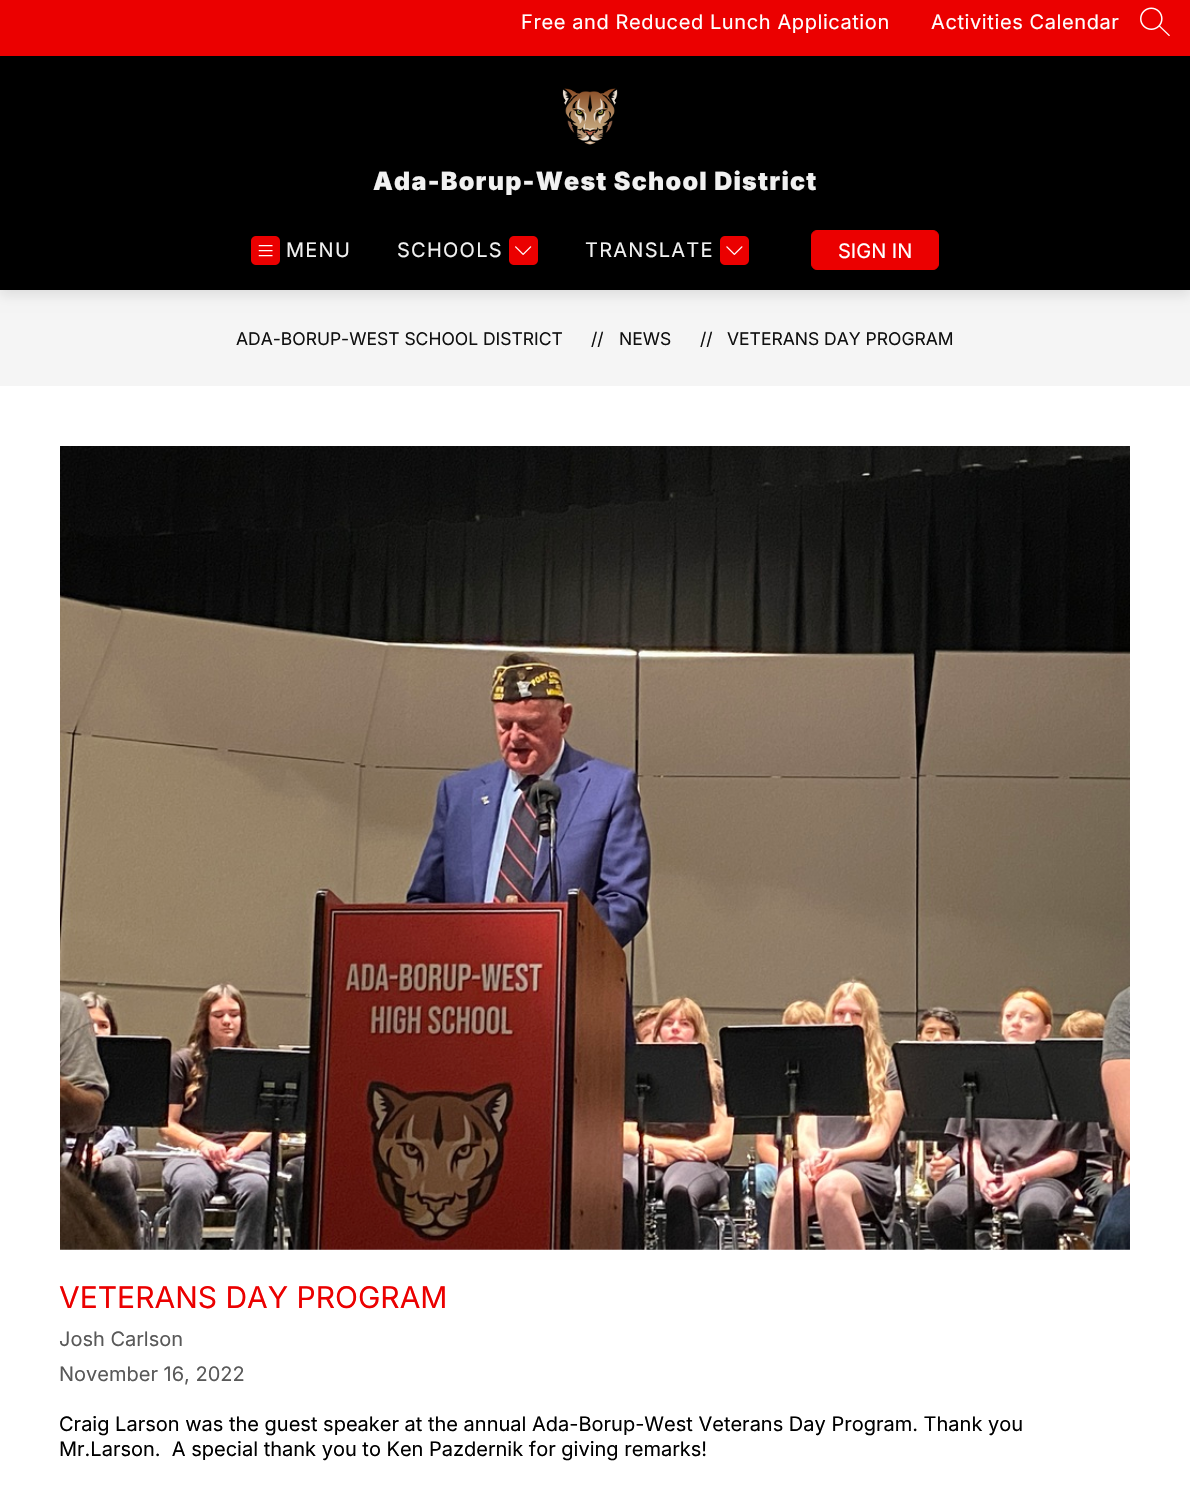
void draw(SkCanvas* canvas) {
  SkPaint paint;
  paint.setAntiAlias(true);
  auto face = [&](const char* family, int weight, float size, bool italic = false) {
    SkFontStyle style(weight, SkFontStyle::kNormal_Width,
      italic ? SkFontStyle::kItalic_Slant : SkFontStyle::kUpright_Slant);
    SkFont result(fontMgr->matchFamilyStyle(family, style), size);
    result.setSubpixel(true);
    return result;
  };
  auto writeSpaced = [&](const char* s, float x, float y, const SkFont& font, const SkPaint& ink, float letter, float word) {
    std::vector<SkGlyphID> glyphs(font.countText(s, strlen(s), SkTextEncoding::kUTF8));
    std::vector<float> xs(glyphs.size());
    font.textToGlyphs(s, strlen(s), SkTextEncoding::kUTF8, glyphs);
    font.getXPos(glyphs, xs, x);
    float extra = 0;
    for (size_t i = 0; i < glyphs.size(); i++) {
      xs[i] += extra;
      extra += letter + word * (glyphs[i] == font.unicharToGlyph(' '));
    }
    canvas->drawTextBlob(SkTextBlob::MakeFromPosHGlyphs(glyphs, xs, y, font), 0, 0, ink);
  };
  auto paste = [&](const char* path, float x, float y, float w, float h) {
    auto image = SkImages::DeferredFromEncodedData(SkData::MakeFromFileName(path));
    canvas->drawImageRect(image, SkRect::MakeXYWH(x, y, w, h), SkSamplingOptions());
  };
  canvas->clear(0xffffffff);
  paint.setColor(0xfff5f5f5);
  canvas->drawRect(SkRect::MakeXYWH(0, 290, 1190, 96), paint);
  paint.setColor(0x1a000000);
  paint.setMaskFilter(SkMaskFilter::MakeBlur(kNormal_SkBlurStyle, 6));
  canvas->drawRect(SkRect::MakeXYWH(0, -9, 1190, 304), paint);
  paint.setMaskFilter(nullptr);
  paint.setColor(0xff000000);
  canvas->drawRect(SkRect::MakeXYWH(0, 56, 1190, 234), paint);
  paint.setColor(0xffeb0000);
  canvas->drawRect(SkRect::MakeXYWH(0, 0, 1190, 56), paint);
  paste("img/1.png", 1140, 7, 30, 29);
  paste("img/2.png", 562, 88, 56, 57);
  paste("img/3.png", 251, 236, 29, 29);
  paste("img/4.png", 509, 236, 29, 29);
  paste("img/5.png", 720, 236, 29, 29);
  canvas->drawRoundRect(SkRect::MakeXYWH(811.5f, 230.5f, 127, 39), 5.5f, 5.5f, paint);
  paint.setStroke(true);
  paint.setStrokeWidth(1);
  canvas->drawRoundRect(SkRect::MakeXYWH(811.5f, 230.5f, 127, 39), 5.5f, 5.5f, paint);
  paste("img/6.png", 60, 446, 1070, 804);
  auto f0 = face("Inter", 400, 20);
  paint.setStroke(false);
  paint.setColor(0xffffffff);
  writeSpaced("Free and Reduced Lunch Application", 521, 29, f0, paint, 0.6f, 0);
  writeSpaced("Activities Calendar", 931, 29, f0, paint, 0.6f, 0);
  auto f1 = face("Inter", 900, 25);
  paint.setColor(0xfff1f1f1);
  writeSpaced("Ada-Borup-West School District", 373, 190, f1, paint, 1.25f, 0);
  {
    const struct { const char* s; float x, y; } items[] = {
      {"MENU", 286, 257},
      {"SCHOOLS", 397, 257},
      {"TRANSLATE", 585, 257},
    };
    for (auto [s, x, y] : items) {
      writeSpaced(s, x, y, f0, paint, 1.25f, 0);
    }
  }
  paint.setColor(0xffffffff);
  canvas->drawString("SIGN IN", 838, 258, f0, paint);
  auto f2 = face("Inter", 400, 17.5f);
  paint.setColor(0xff111111);
  {
    const struct { const char* s; float x, y; } items[] = {
      {"ADA-BORUP-WEST SCHOOL DISTRICT", 236, 345},
      {"//", 591, 345},
      {"NEWS", 619, 345},
      {"//", 700, 345},
      {"VETERANS DAY PROGRAM", 727, 345},
    };
    for (auto [s, x, y] : items) {
      canvas->drawString(s, x, y, f2, paint);
    }
  }
  auto f3 = face("Inter", 400, 30);
  paint.setColor(0xffeb0000);
  canvas->drawString("VETERANS DAY PROGRAM", 59, 1308, f3, paint);
  paint.setColor(0xff595959);
  canvas->drawString("Josh Carlson", 59, 1346, f0, paint);
  canvas->drawString("November 16, 2022", 59, 1381, f0, paint);
  paint.setColor(0xff000000);
  canvas->drawString("Craig Larson was the guest speaker at the annual Ada-Borup-West Veterans Day Program. Thank you", 59, 1431, f0, paint);
  canvas->drawString("Mr.Larson.  A special thank you to Ken Pazdernik for giving remarks!", 59, 1456, f0, paint);
}
